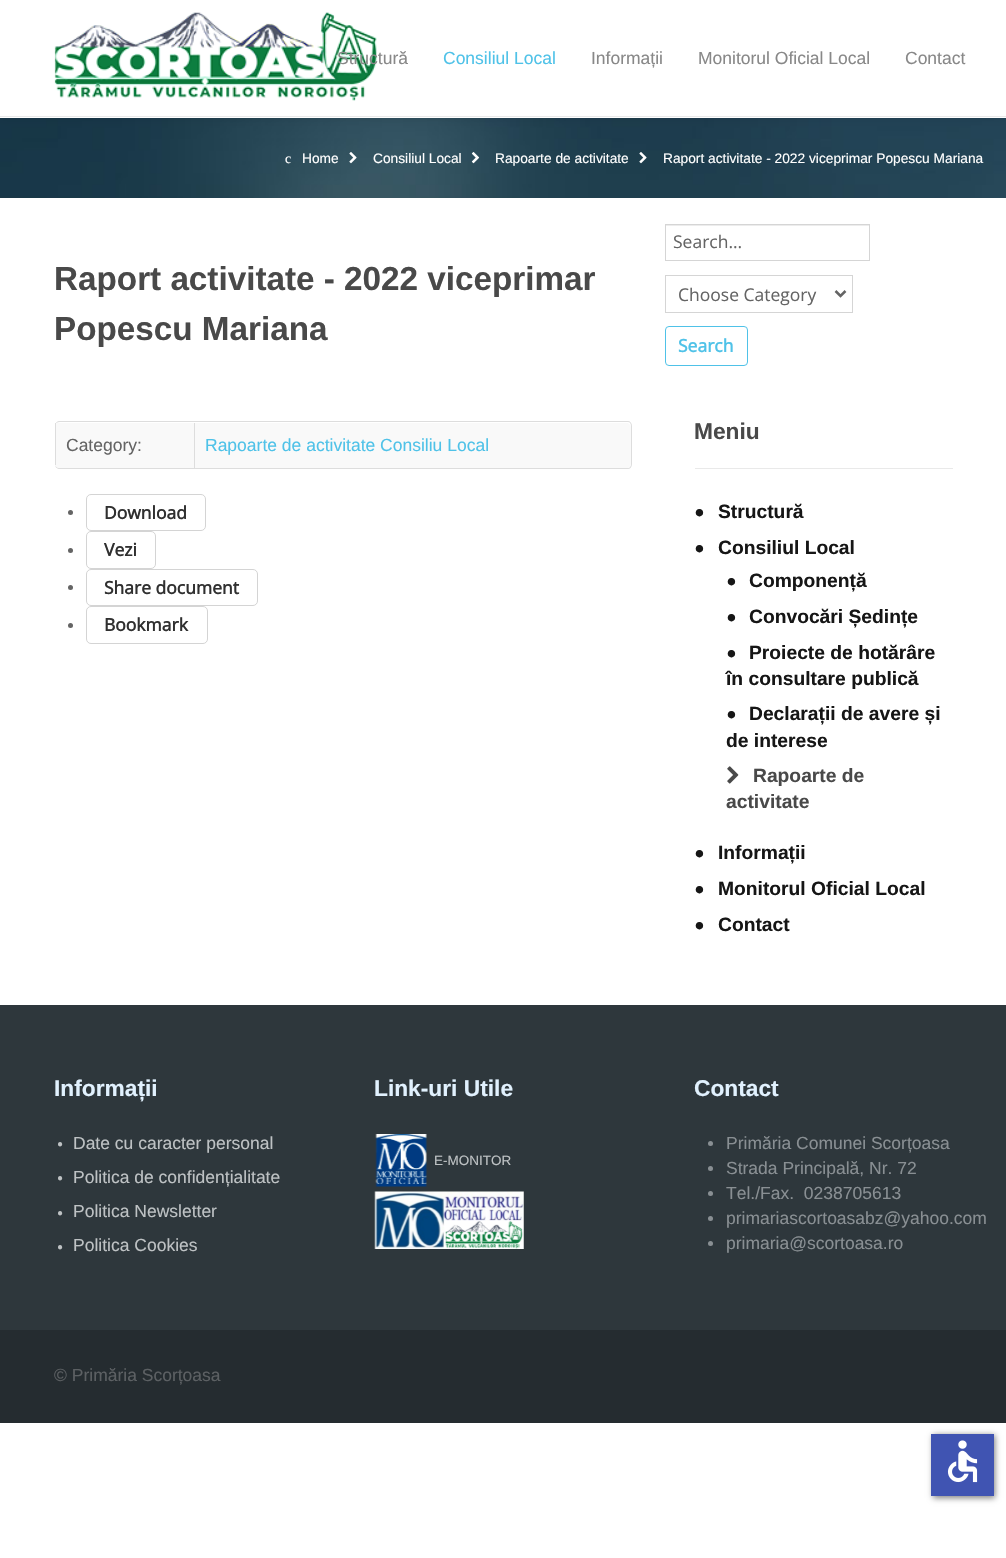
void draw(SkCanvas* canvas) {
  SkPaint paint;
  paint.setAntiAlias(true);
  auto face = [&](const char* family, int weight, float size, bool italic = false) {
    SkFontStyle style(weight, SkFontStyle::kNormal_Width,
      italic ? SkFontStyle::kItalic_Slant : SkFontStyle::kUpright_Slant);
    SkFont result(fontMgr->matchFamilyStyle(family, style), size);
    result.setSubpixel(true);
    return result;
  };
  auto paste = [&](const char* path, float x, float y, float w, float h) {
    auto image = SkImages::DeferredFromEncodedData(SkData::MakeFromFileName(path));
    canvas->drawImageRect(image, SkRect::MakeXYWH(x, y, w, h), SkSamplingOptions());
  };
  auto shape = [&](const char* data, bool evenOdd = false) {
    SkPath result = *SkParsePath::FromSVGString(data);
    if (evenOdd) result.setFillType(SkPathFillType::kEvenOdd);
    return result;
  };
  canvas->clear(0xffffffff);
  paste("img/2.png", 0, 118, 1006, 80);
  paint.setColor(0x17000000);
  paint.setMaskFilter(SkMaskFilter::MakeBlur(kNormal_SkBlurStyle, 4.5f));
  canvas->drawRect(SkRect::MakeXYWH(0, -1, 1006, 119), paint);
  paint.setMaskFilter(nullptr);
  paint.setColor(0xffffffff);
  canvas->drawRect(SkRect::MakeXYWH(0, 0, 1006, 118), paint);
  paint.setColor(0xffe9e9e9);
  canvas->drawRect(SkRect::MakeXYWH(0, 116, 1006, 1), paint);
  paste("img/1.png", 54, 12, 323, 89);
  paste("img/3.png", 349, 152, 8, 12);
  paste("img/4.png", 471, 152, 9, 12);
  paste("img/5.png", 639, 152, 8, 12);
  paint.setColor(0xffdddddd);
  canvas->drawPath(shape("M60 421H628C630 421 632 423 632 426V464C632 467 630 469 628 469H60C57 469 55 467 55 464V426C55 423 57 421 60 421ZM60 422H628C630 422 631 424 631 426V464C631 466 630 468 628 468H60C57 468 55 466 55 464V426C55 424 57 422 60 422Z", true), paint);
  paint.setColor(0xfff9f9f9);
  canvas->drawPath(shape("M55 423H194V468H60C57 468 55 466 55 463Z"), paint);
  paint.setColor(0xffdddddd);
  canvas->drawRect(SkRect::MakeXYWH(55, 423, 1, 42), paint);
  paint.setColor(0xfff9f9f9);
  canvas->drawPath(shape("M194 423H626C629 423 631 425 631 428V463C631 466 629 468 626 468H194Z"), paint);
  paint.setColor(0xffdddddd);
  canvas->drawRect(SkRect::MakeXYWH(194, 423, 1, 45), paint);
  paint.setColor(0xff646464);
  canvas->drawCircle(70.5f, 512.5f, 2.5f, paint);
  paint.setStroke(true);
  paint.setStrokeWidth(1);
  paint.setColor(0xffd4d4d4);
  canvas->drawRoundRect(SkRect::MakeXYWH(86.5f, 494.5f, 119, 36), 4.5f, 4.5f, paint);
  paint.setStroke(false);
  paint.setColor(0xff646464);
  canvas->drawCircle(70.5f, 550.5f, 2.5f, paint);
  paint.setStroke(true);
  paint.setColor(0xffd4d4d4);
  canvas->drawRoundRect(SkRect::MakeXYWH(86.5f, 531.5f, 69, 37), 4.5f, 4.5f, paint);
  paint.setStroke(false);
  paint.setColor(0xff646464);
  canvas->drawCircle(70.5f, 587.5f, 2.5f, paint);
  paint.setStroke(true);
  paint.setColor(0xffd4d4d4);
  canvas->drawRoundRect(SkRect::MakeXYWH(86.5f, 569.5f, 171, 36), 4.5f, 4.5f, paint);
  paint.setStroke(false);
  paint.setColor(0xff646464);
  canvas->drawCircle(70.5f, 625.5f, 2.5f, paint);
  paint.setStroke(true);
  paint.setColor(0xffd4d4d4);
  canvas->drawRoundRect(SkRect::MakeXYWH(86.5f, 606.5f, 121, 37), 4.5f, 4.5f, paint);
  paint.setStroke(false);
  paint.setColor(0xffececec);
  canvas->drawRect(SkRect::MakeXYWH(666, 225, 203, 1), paint);
  paint.setStroke(true);
  paint.setColor(0xffd5d5d5);
  canvas->drawRect(SkRect::MakeXYWH(665.5f, 224.5f, 204, 36), paint);
  canvas->drawRect(SkRect::MakeXYWH(665.5f, 275.5f, 187, 37), paint);
  paint.setStrokeWidth(2.5f);
  paint.setColor(0xff646464);
  canvas->drawPath(shape("M835.5 291L840.5 296L845.5 291"), paint);
  paint.setStrokeWidth(1);
  paint.setColor(0xff4fc2e8);
  canvas->drawRoundRect(SkRect::MakeXYWH(665.5f, 326.5f, 82, 39), 3.5f, 3.5f, paint);
  paint.setStroke(false);
  paint.setColor(0xffe9e9e9);
  canvas->drawRect(SkRect::MakeXYWH(695, 468, 258, 1), paint);
  paste("img/6.png", 727, 766, 12, 18);
  paint.setColor(0xff2e373c);
  canvas->drawRect(SkRect::MakeXYWH(0, 1005, 1006, 325), paint);
  paste("img/7.png", 375, 1134, 52, 53);
  paste("img/8.png", 374, 1191, 150, 58);
  paint.setColor(0xff898f93);
  canvas->drawCircle(710.5f, 1143.5f, 2.5f, paint);
  canvas->drawCircle(710.5f, 1168.5f, 2.5f, paint);
  canvas->drawCircle(710.5f, 1193.5f, 2.5f, paint);
  canvas->drawCircle(710.5f, 1218.5f, 2.5f, paint);
  canvas->drawCircle(710.5f, 1243.5f, 2.5f, paint);
  paint.setColor(0xff252c30);
  canvas->drawRect(SkRect::MakeXYWH(0, 1330, 1006, 93), paint);
  paint.setColor(0x80000000);
  paint.setMaskFilter(SkMaskFilter::MakeBlur(kNormal_SkBlurStyle, 3));
  canvas->drawRect(SkRect::MakeXYWH(933, 1435, 62, 63), paint);
  paint.setMaskFilter(nullptr);
  paint.setColor(0xff4054b2);
  canvas->drawRect(SkRect::MakeXYWH(931, 1434, 63, 62), paint);
  paste("img/9.png", 947, 1440, 31, 43);
  auto f0 = face("Liberation Sans", 400, 17.5f);
  paint.setColor(0xff888888);
  canvas->drawString("Structură", 337, 64, f0, paint);
  paint.setColor(0xff4fc2e8);
  canvas->drawString("Consiliul Local", 443, 64, f0, paint);
  paint.setColor(0xff888888);
  {
    const struct { const char* s; float x, y; } items[] = {
      {"Informații", 591, 64},
      {"Monitorul Oficial Local", 698, 64},
      {"Contact", 905, 64},
    };
    for (auto [s, x, y] : items) {
      canvas->drawString(s, x, y, f0, paint);
    }
  }
  auto f1 = face("Liberation Serif", 400, 13.75f);
  paint.setColor(0xffffffff);
  canvas->drawString("c", 285, 163, f1, paint);
  auto f2 = face("Liberation Sans", 400, 13.75f);
  {
    const struct { const char* s; float x, y; } items[] = {
      {"Home", 302, 163},
      {"Consiliul Local", 373, 163},
      {"Rapoarte de activitate", 495, 163},
      {"Raport activitate - 2022 viceprimar Popescu Mariana", 663, 163},
    };
    for (auto [s, x, y] : items) {
      canvas->drawString(s, x, y, f2, paint);
    }
  }
  auto f3 = face("Liberation Sans", 700, 33.25f);
  paint.setColor(0xff494949);
  canvas->drawString("Raport activitate - 2022 viceprimar", 54, 290, f3, paint);
  canvas->drawString("Popescu Mariana", 54, 340, f3, paint);
  paint.setColor(0xff646464);
  canvas->drawString("Category:", 66, 451, f0, paint);
  paint.setColor(0xff4fc2e8);
  canvas->drawString("Rapoarte de activitate Consiliu Local", 205, 451, f0, paint);
  auto f4 = face("Open Sans", 700, 17.5f);
  paint.setColor(0xff303030);
  {
    const struct { const char* s; float x, y; } items[] = {
      {"Download", 104, 519},
      {"Vezi", 104, 556},
      {"Share document", 104, 594},
      {"Bookmark", 104, 631},
    };
    for (auto [s, x, y] : items) {
      canvas->drawString(s, x, y, f4, paint);
    }
  }
  auto f5 = face("Open Sans", 400, 17.5f);
  paint.setColor(0xff646464);
  canvas->drawString("Search...", 673, 248, f5, paint);
  canvas->drawString("Choose Category", 678, 301, f5, paint);
  paint.setColor(0xff4fc2e8);
  canvas->drawString("Search", 678, 352, f4, paint);
  auto f6 = face("Liberation Sans", 700, 22.75f);
  paint.setColor(0xff494949);
  canvas->drawString("Meniu", 694, 439, f6, paint);
  auto f7 = face("Liberation Serif", 400, 31);
  paint.setColor(0xff161616);
  canvas->drawString("•", 694, 523, f7, paint);
  auto f8 = face("Liberation Sans", 700, 19.25f);
  canvas->drawString("Structură", 718, 518, f8, paint);
  canvas->drawString("•", 694, 559, f7, paint);
  canvas->drawString("Consiliul Local", 718, 554, f8, paint);
  canvas->drawString("•", 726, 592, f7, paint);
  canvas->drawString("Componență", 749, 587, f8, paint);
  canvas->drawString("•", 726, 628, f7, paint);
  canvas->drawString("Convocări Ședințe", 749, 623, f8, paint);
  canvas->drawString("•", 726, 664, f7, paint);
  canvas->drawString("Proiecte de hotărâre", 749, 659, f8, paint);
  canvas->drawString("în consultare publică", 726, 685, f8, paint);
  canvas->drawString("•", 726, 725, f7, paint);
  canvas->drawString("Declarații de avere și", 749, 720, f8, paint);
  canvas->drawString("de interese", 726, 747, f8, paint);
  paint.setColor(0xff494949);
  canvas->drawString("Rapoarte de", 753, 782, f8, paint);
  canvas->drawString("activitate", 726, 808, f8, paint);
  paint.setColor(0xff161616);
  canvas->drawString("•", 694, 864, f7, paint);
  canvas->drawString("Informații", 718, 859, f8, paint);
  canvas->drawString("•", 694, 900, f7, paint);
  canvas->drawString("Monitorul Oficial Local", 718, 895, f8, paint);
  canvas->drawString("•", 694, 936, f7, paint);
  canvas->drawString("Contact", 718, 931, f8, paint);
  paint.setColor(0xffe1f1fe);
  canvas->drawString("Informații", 54, 1096, f6, paint);
  auto f9 = face("Liberation Serif", 400, 17.5f);
  paint.setColor(0xffbec2c4);
  canvas->drawString("•", 57, 1150, f9, paint);
  canvas->drawString("Date cu caracter personal", 73, 1149, f0, paint);
  canvas->drawString("•", 57, 1184, f9, paint);
  canvas->drawString("Politica de confidențialitate", 73, 1183, f0, paint);
  canvas->drawString("•", 57, 1219, f9, paint);
  canvas->drawString("Politica Newsletter", 73, 1217, f0, paint);
  canvas->drawString("•", 57, 1253, f9, paint);
  canvas->drawString("Politica Cookies", 73, 1251, f0, paint);
  paint.setColor(0xffe1f1fe);
  canvas->drawString("Link-uri Utile", 374, 1096, f6, paint);
  auto f10 = face("Liberation Sans", 400, 13.5f);
  paint.setColor(0xffbec2c4);
  canvas->drawString("E-MONITOR", 434, 1165, f10, paint);
  paint.setColor(0xffe1f1fe);
  canvas->drawString("Contact", 694, 1096, f6, paint);
  paint.setColor(0xff898f93);
  {
    const struct { const char* s; float x, y; } items[] = {
      {"Primăria Comunei Scorțoasa", 726, 1149},
      {"Strada Principală, Nr. 72", 726, 1174},
      {"Tel./Fax.  0238705613", 726, 1199},
      {"primariascortoasabz@yahoo.com", 726, 1224},
      {"primaria@scortoasa.ro", 726, 1249},
    };
    for (auto [s, x, y] : items) {
      canvas->drawString(s, x, y, f0, paint);
    }
  }
  paint.setColor(0xff5c6063);
  canvas->drawString("© Primăria Scorțoasa", 54, 1381, f0, paint);
}
